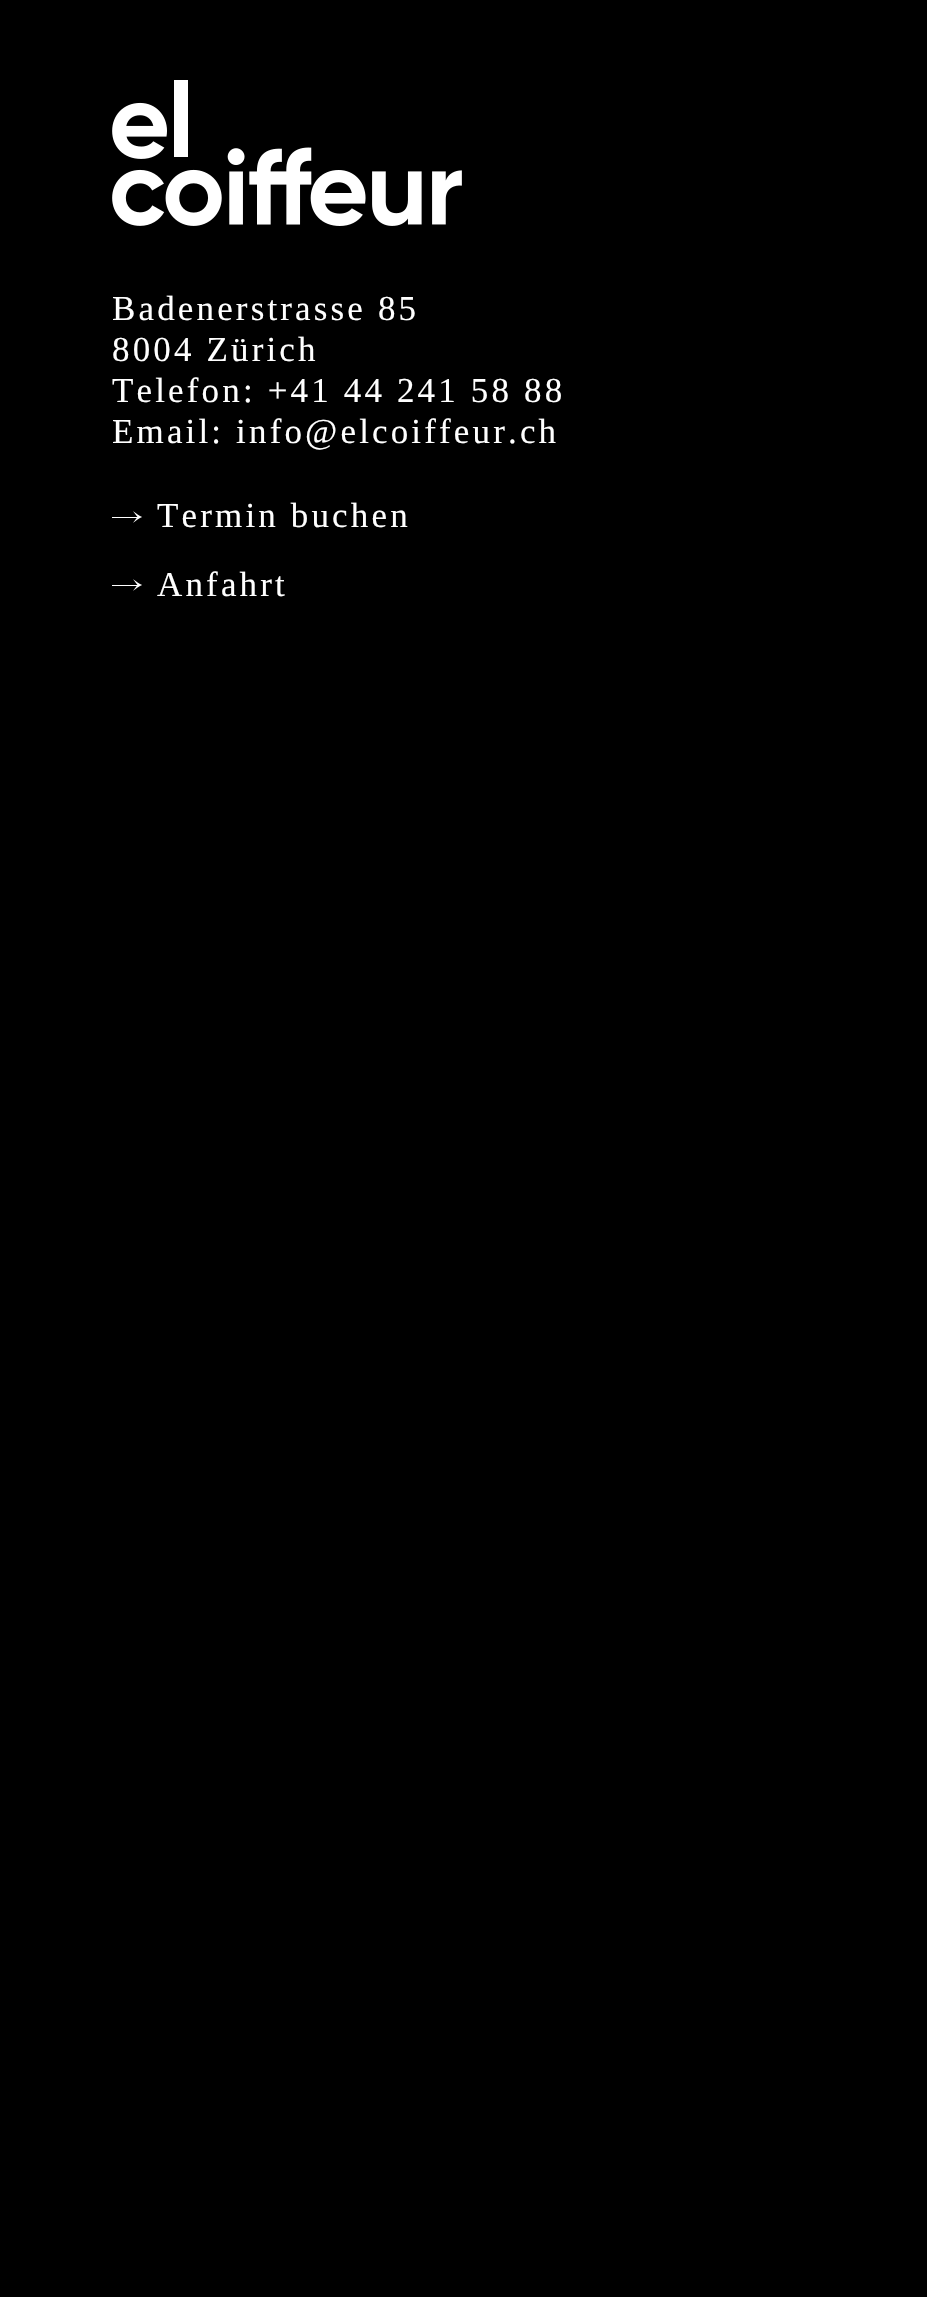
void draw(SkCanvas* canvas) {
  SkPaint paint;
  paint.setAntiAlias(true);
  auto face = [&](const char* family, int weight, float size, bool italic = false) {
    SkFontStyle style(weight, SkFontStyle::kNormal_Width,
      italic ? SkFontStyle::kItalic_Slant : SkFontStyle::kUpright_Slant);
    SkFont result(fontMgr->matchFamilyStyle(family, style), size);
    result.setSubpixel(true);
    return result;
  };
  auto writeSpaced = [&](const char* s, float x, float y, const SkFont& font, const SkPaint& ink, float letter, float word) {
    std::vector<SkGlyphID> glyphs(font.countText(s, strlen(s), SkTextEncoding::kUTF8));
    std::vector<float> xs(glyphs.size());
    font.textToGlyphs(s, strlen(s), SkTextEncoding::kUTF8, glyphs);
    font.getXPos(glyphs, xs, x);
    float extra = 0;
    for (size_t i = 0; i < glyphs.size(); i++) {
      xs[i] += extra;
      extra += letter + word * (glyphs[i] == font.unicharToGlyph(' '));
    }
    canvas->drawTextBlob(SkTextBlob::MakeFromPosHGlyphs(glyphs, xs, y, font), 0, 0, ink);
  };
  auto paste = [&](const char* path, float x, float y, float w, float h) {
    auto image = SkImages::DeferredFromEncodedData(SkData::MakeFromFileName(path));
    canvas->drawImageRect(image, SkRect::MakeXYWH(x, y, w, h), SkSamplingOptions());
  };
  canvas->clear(0xff000000);
  paste("img/1.png", 112, 80, 350, 146);
  paste("img/2.png", 112, 511, 30, 12);
  paste("img/2.png", 112, 579, 30, 12);
  auto f0 = face("Liberation Serif", 400, 35);
  paint.setColor(0xffffffff);
  {
    const struct { const char* s; float x, y; } items[] = {
      {"Badenerstrasse 85", 112, 320},
      {"8004 Zürich", 112, 361},
      {"Telefon: +41 44 241 58 88", 112, 402},
      {"Email: info@elcoiffeur.ch", 112, 443},
      {"Termin buchen", 157, 527},
      {"Anfahrt", 157, 596},
    };
    for (auto [s, x, y] : items) {
      writeSpaced(s, x, y, f0, paint, 3.15f, 0);
    }
  }
}
